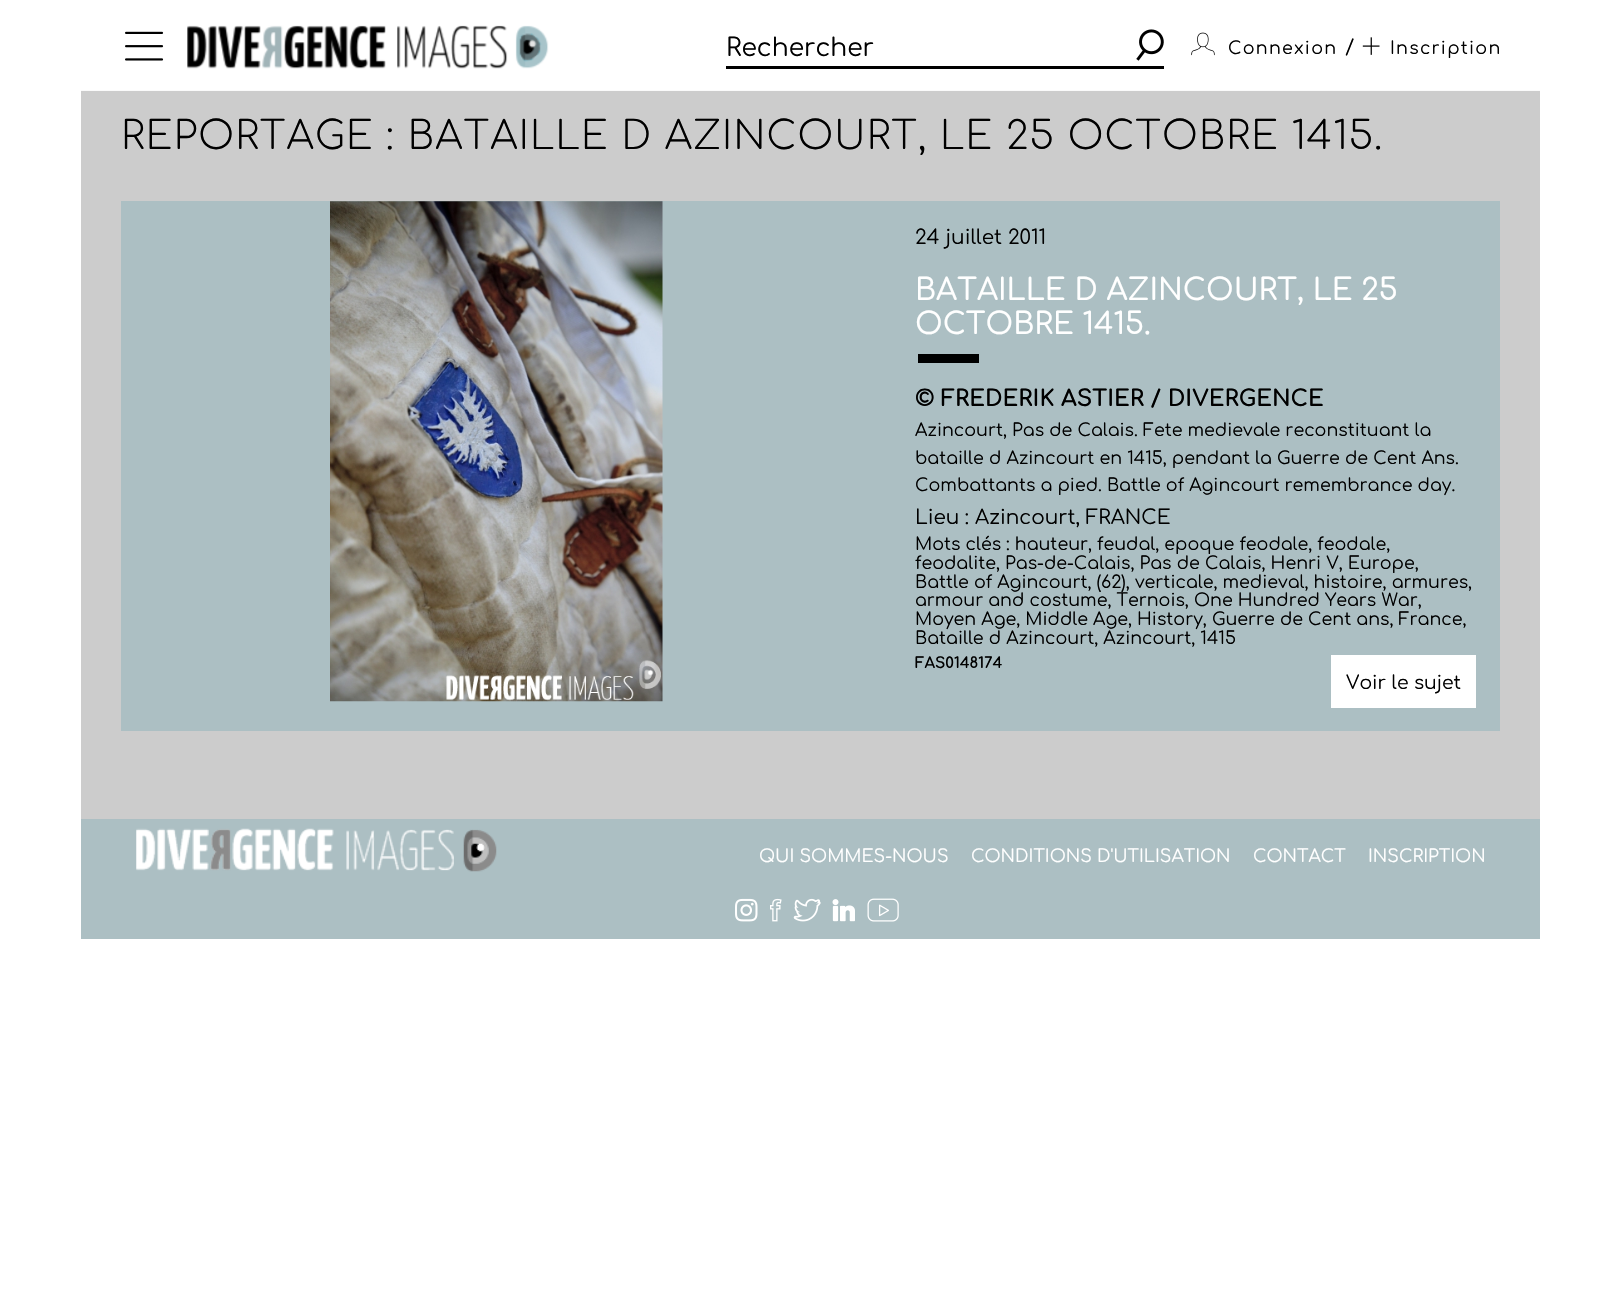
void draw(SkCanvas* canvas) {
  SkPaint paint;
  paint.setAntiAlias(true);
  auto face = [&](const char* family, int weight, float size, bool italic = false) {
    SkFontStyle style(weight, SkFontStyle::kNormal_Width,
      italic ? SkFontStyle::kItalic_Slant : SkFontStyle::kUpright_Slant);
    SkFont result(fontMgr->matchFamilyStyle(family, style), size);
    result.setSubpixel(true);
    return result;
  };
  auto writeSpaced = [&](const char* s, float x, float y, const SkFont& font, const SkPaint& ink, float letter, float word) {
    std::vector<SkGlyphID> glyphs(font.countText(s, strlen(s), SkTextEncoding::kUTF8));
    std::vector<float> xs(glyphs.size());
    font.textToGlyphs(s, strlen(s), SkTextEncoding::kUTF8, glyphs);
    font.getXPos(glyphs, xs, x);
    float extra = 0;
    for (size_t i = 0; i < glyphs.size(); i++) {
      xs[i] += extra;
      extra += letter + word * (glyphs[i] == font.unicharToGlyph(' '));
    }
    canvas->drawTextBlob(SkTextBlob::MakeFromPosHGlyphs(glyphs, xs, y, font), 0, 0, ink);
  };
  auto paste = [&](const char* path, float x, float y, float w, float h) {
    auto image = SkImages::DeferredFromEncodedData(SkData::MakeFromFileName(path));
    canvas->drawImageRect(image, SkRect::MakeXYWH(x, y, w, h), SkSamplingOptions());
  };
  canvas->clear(0xffffffff);
  paint.setColor(0xffcccccc);
  canvas->drawRect(SkRect::MakeXYWH(81, 91, 1459, 728), paint);
  paint.setColor(0xfffafafa);
  canvas->drawRect(SkRect::MakeXYWH(81, 90, 1459, 1), paint);
  paste("img/1.png", 125, 31, 39, 30);
  paste("img/2.png", 187, 25, 362, 44);
  paint.setColor(0xff000000);
  canvas->drawRect(SkRect::MakeXYWH(726, 66, 438, 3), paint);
  paste("img/3.png", 1136, 29, 28, 32);
  paste("img/4.png", 1191, 32, 24, 24);
  paste("img/5.png", 1362, 37, 18, 18);
  paint.setColor(0xffacbfc3);
  canvas->drawRect(SkRect::MakeXYWH(121, 201, 1379, 530), paint);
  paste("img/6.png", 330, 201, 333, 501);
  {
    const struct { float x, y, w, h; SkColor color; } items[] = {
      {918, 354, 61, 9, 0xff000000},
      {1331, 655, 145, 53, 0xffffffff},
      {81, 819, 1459, 120, 0xffacbfc3},
    };
    for (auto [x, y, w, h, color] : items) {
      paint.setColor(color);
      canvas->drawRect(SkRect::MakeXYWH(x, y, w, h), paint);
    }
  }
  paste("img/7.png", 136, 828, 361, 44);
  paste("img/8.png", 735, 898, 23, 24);
  paste("img/9.png", 770, 898, 12, 24);
  paste("img/10.png", 793, 898, 28, 24);
  paste("img/11.png", 832, 899, 23, 23);
  paste("img/12.png", 867, 898, 32, 24);
  auto f0 = face("Comfortaa", 400, 25);
  paint.setColor(0xff000000);
  canvas->drawString("Rechercher", 726, 56, f0, paint);
  auto f1 = face("Comfortaa", 400, 17.5f);
  writeSpaced("Connexion", 1228, 54, f1, paint, 1.25f, 0);
  auto f2 = face("Comfortaa", 400, 20);
  writeSpaced("/", 1345, 54, f2, paint, 1.25f, 0);
  writeSpaced("Inscription", 1390, 54, f1, paint, 1.25f, 0);
  auto f3 = face("Comfortaa", 300, 38.75f);
  writeSpaced("REPORTAGE : BATAILLE D AZINCOURT, LE 25 OCTOBRE 1415.", 121, 149, f3, paint, 1.25f, 0);
  canvas->drawString("24 juillet 2011", 915, 244, f2, paint);
  auto f4 = face("Comfortaa", 500, 30);
  paint.setColor(0xffffffff);
  canvas->drawString("BATAILLE D AZINCOURT, LE 25", 915, 300, f4, paint);
  canvas->drawString("OCTOBRE 1415.", 915, 334, f4, paint);
  auto f5 = face("Comfortaa", 700, 22.5f);
  paint.setColor(0xff000000);
  canvas->drawString("© FREDERIK ASTIER / DIVERGENCE", 915, 406, f5, paint);
  {
    const struct { const char* s; float x, y; } items[] = {
      {"Azincourt, Pas de Calais. Fete medievale reconstituant la", 915, 436},
      {"bataille d Azincourt en 1415, pendant la Guerre de Cent Ans.", 915, 464},
      {"Combattants a pied. Battle of Agincourt remembrance day.", 915, 491},
    };
    for (auto [s, x, y] : items) {
      canvas->drawString(s, x, y, f1, paint);
    }
  }
  canvas->drawString("Lieu : Azincourt, FRANCE", 915, 524, f2, paint);
  {
    const struct { const char* s; float x, y; } items[] = {
      {"Mots clés : hauteur, feudal, epoque feodale, feodale,", 915, 550},
      {"feodalite, Pas-de-Calais, Pas de Calais, Henri V, Europe,", 915, 569},
      {"Battle of Agincourt, (62), verticale, medieval, histoire, armures,", 915, 588},
      {"armour and costume, Ternois, One Hundred Years War,", 915, 606},
      {"Moyen Age, Middle Age, History, Guerre de Cent ans, France,", 915, 625},
      {"Bataille d Azincourt, Azincourt, 1415", 915, 644},
    };
    for (auto [s, x, y] : items) {
      canvas->drawString(s, x, y, f1, paint);
    }
  }
  auto f6 = face("Comfortaa", 700, 15);
  canvas->drawString("FAS0148174", 915, 668, f6, paint);
  auto f7 = face("Comfortaa", 400, 18.75f);
  canvas->drawString("Voir le sujet", 1346, 689, f7, paint);
  paint.setColor(0xffffffff);
  {
    const struct { const char* s; float x, y; } items[] = {
      {"QUI SOMMES-NOUS", 759, 862},
      {"CONDITIONS D'UTILISATION", 971, 862},
      {"CONTACT", 1253, 862},
      {"INSCRIPTION", 1368, 862},
    };
    for (auto [s, x, y] : items) {
      canvas->drawString(s, x, y, f1, paint);
    }
  }
}
